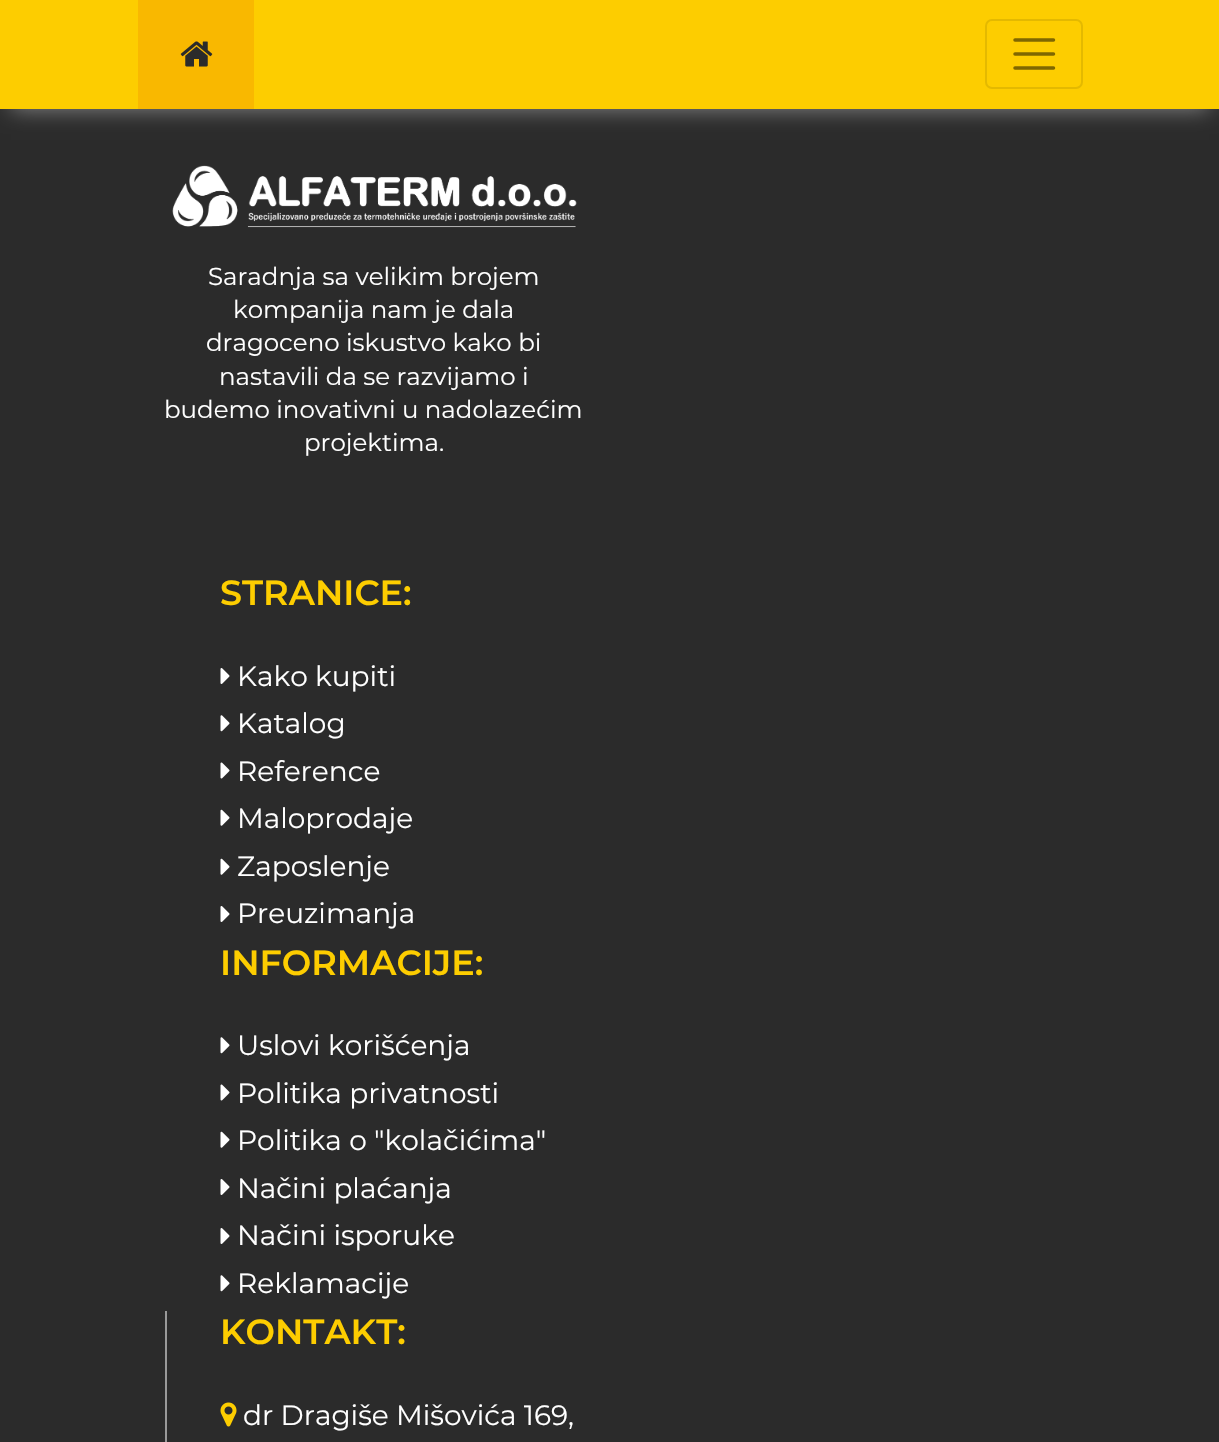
void draw(SkCanvas* canvas) {
  SkPaint paint;
  paint.setAntiAlias(true);
  auto face = [&](const char* family, int weight, float size, bool italic = false) {
    SkFontStyle style(weight, SkFontStyle::kNormal_Width,
      italic ? SkFontStyle::kItalic_Slant : SkFontStyle::kUpright_Slant);
    SkFont result(fontMgr->matchFamilyStyle(family, style), size);
    result.setSubpixel(true);
    return result;
  };
  auto paste = [&](const char* path, float x, float y, float w, float h) {
    auto image = SkImages::DeferredFromEncodedData(SkData::MakeFromFileName(path));
    canvas->drawImageRect(image, SkRect::MakeXYWH(x, y, w, h), SkSamplingOptions());
  };
  auto shape = [&](const char* data, bool evenOdd = false) {
    SkPath result = *SkParsePath::FromSVGString(data);
    if (evenOdd) result.setFillType(SkPathFillType::kEvenOdd);
    return result;
  };
  canvas->clear(0xff2b2b2b);
  paint.setColor(0xff888888);
  paint.setMaskFilter(SkMaskFilter::MakeBlur(kNormal_SkBlurStyle, 10.5f));
  canvas->drawRect(SkRect::MakeXYWH(11, 21, 1198, 88), paint);
  paint.setMaskFilter(nullptr);
  paint.setColor(0xfffdcd00);
  canvas->drawRect(SkRect::MakeXYWH(0, 0, 1219, 109), paint);
  paint.setColor(0xfff9b800);
  canvas->drawRect(SkRect::MakeXYWH(138, 0, 116, 109), paint);
  paste("img/1.png", 180, 41, 33, 26);
  paint.setStroke(true);
  paint.setStrokeWidth(2);
  paint.setColor(0xffe4b900);
  canvas->drawRoundRect(SkRect::MakeXYWH(986, 20, 96, 68), 6, 6, paint);
  paint.setStrokeWidth(3.5f);
  paint.setStrokeCap(SkPaint::kRound_Cap);
  paint.setColor(0xff7f6700);
  canvas->drawPath(shape("M1015 40H1053.5M1015 54H1053.5M1015 68H1053.5"), paint);
  paste("img/2.png", 172, 165, 405, 63);
  paste("img/3.png", 220, 668, 10, 16);
  paste("img/4.png", 220, 715, 10, 17);
  paste("img/5.png", 220, 762, 10, 17);
  paste("img/6.png", 220, 809, 10, 17);
  paste("img/6.png", 220, 858, 10, 17);
  paste("img/3.png", 220, 906, 10, 16);
  paste("img/4.png", 220, 1037, 10, 17);
  paste("img/5.png", 220, 1084, 10, 17);
  paste("img/6.png", 220, 1131, 10, 17);
  paste("img/3.png", 220, 1179, 10, 16);
  paste("img/3.png", 220, 1228, 10, 16);
  paste("img/4.png", 220, 1275, 10, 17);
  paint.setStroke(false);
  paint.setColor(0xff999999);
  canvas->drawRect(SkRect::MakeXYWH(165, 1311, 2, 131), paint);
  paste("img/7.png", 220, 1402, 17, 25);
  auto f0 = face("Montserrat", 400, 24.5f);
  paint.setColor(0xffffffff);
  {
    const struct { const char* s; float x, y; } items[] = {
      {"Saradnja sa velikim brojem", 208, 285},
      {"kompanija nam je dala", 233, 318},
      {"dragoceno iskustvo kako bi", 206, 351},
      {"nastavili da se razvijamo i", 219, 385},
      {"budemo inovativni u nadolazećim", 164, 418},
      {"projektima.", 304, 451},
    };
    for (auto [s, x, y] : items) {
      canvas->drawString(s, x, y, f0, paint);
    }
  }
  auto f1 = face("Montserrat", 600, 35);
  paint.setColor(0xfffdcd00);
  canvas->drawString("STRANICE:", 220, 605, f1, paint);
  auto f2 = face("Montserrat", 400, 28);
  paint.setColor(0xffffffff);
  {
    const struct { const char* s; float x, y; } items[] = {
      {"Kako kupiti", 237, 686},
      {"Katalog", 237, 733},
      {"Reference", 237, 781},
      {"Maloprodaje", 237, 828},
      {"Zaposlenje", 237, 876},
      {"Preuzimanja", 237, 923},
    };
    for (auto [s, x, y] : items) {
      canvas->drawString(s, x, y, f2, paint);
    }
  }
  paint.setColor(0xfffdcd00);
  canvas->drawString("INFORMACIJE:", 220, 975, f1, paint);
  paint.setColor(0xffffffff);
  {
    const struct { const char* s; float x, y; } items[] = {
      {"Uslovi korišćenja", 237, 1055},
      {"Politika privatnosti", 237, 1103},
      {"Politika o \"kolačićima\"", 237, 1150},
      {"Načini plaćanja", 237, 1198},
      {"Načini isporuke", 237, 1245},
      {"Reklamacije", 237, 1293},
    };
    for (auto [s, x, y] : items) {
      canvas->drawString(s, x, y, f2, paint);
    }
  }
  paint.setColor(0xfffdcd00);
  canvas->drawString("KONTAKT:", 220, 1344, f1, paint);
  paint.setColor(0xffffffff);
  canvas->drawString("dr Dragiše Mišovića 169,", 243, 1425, f2, paint);
}
